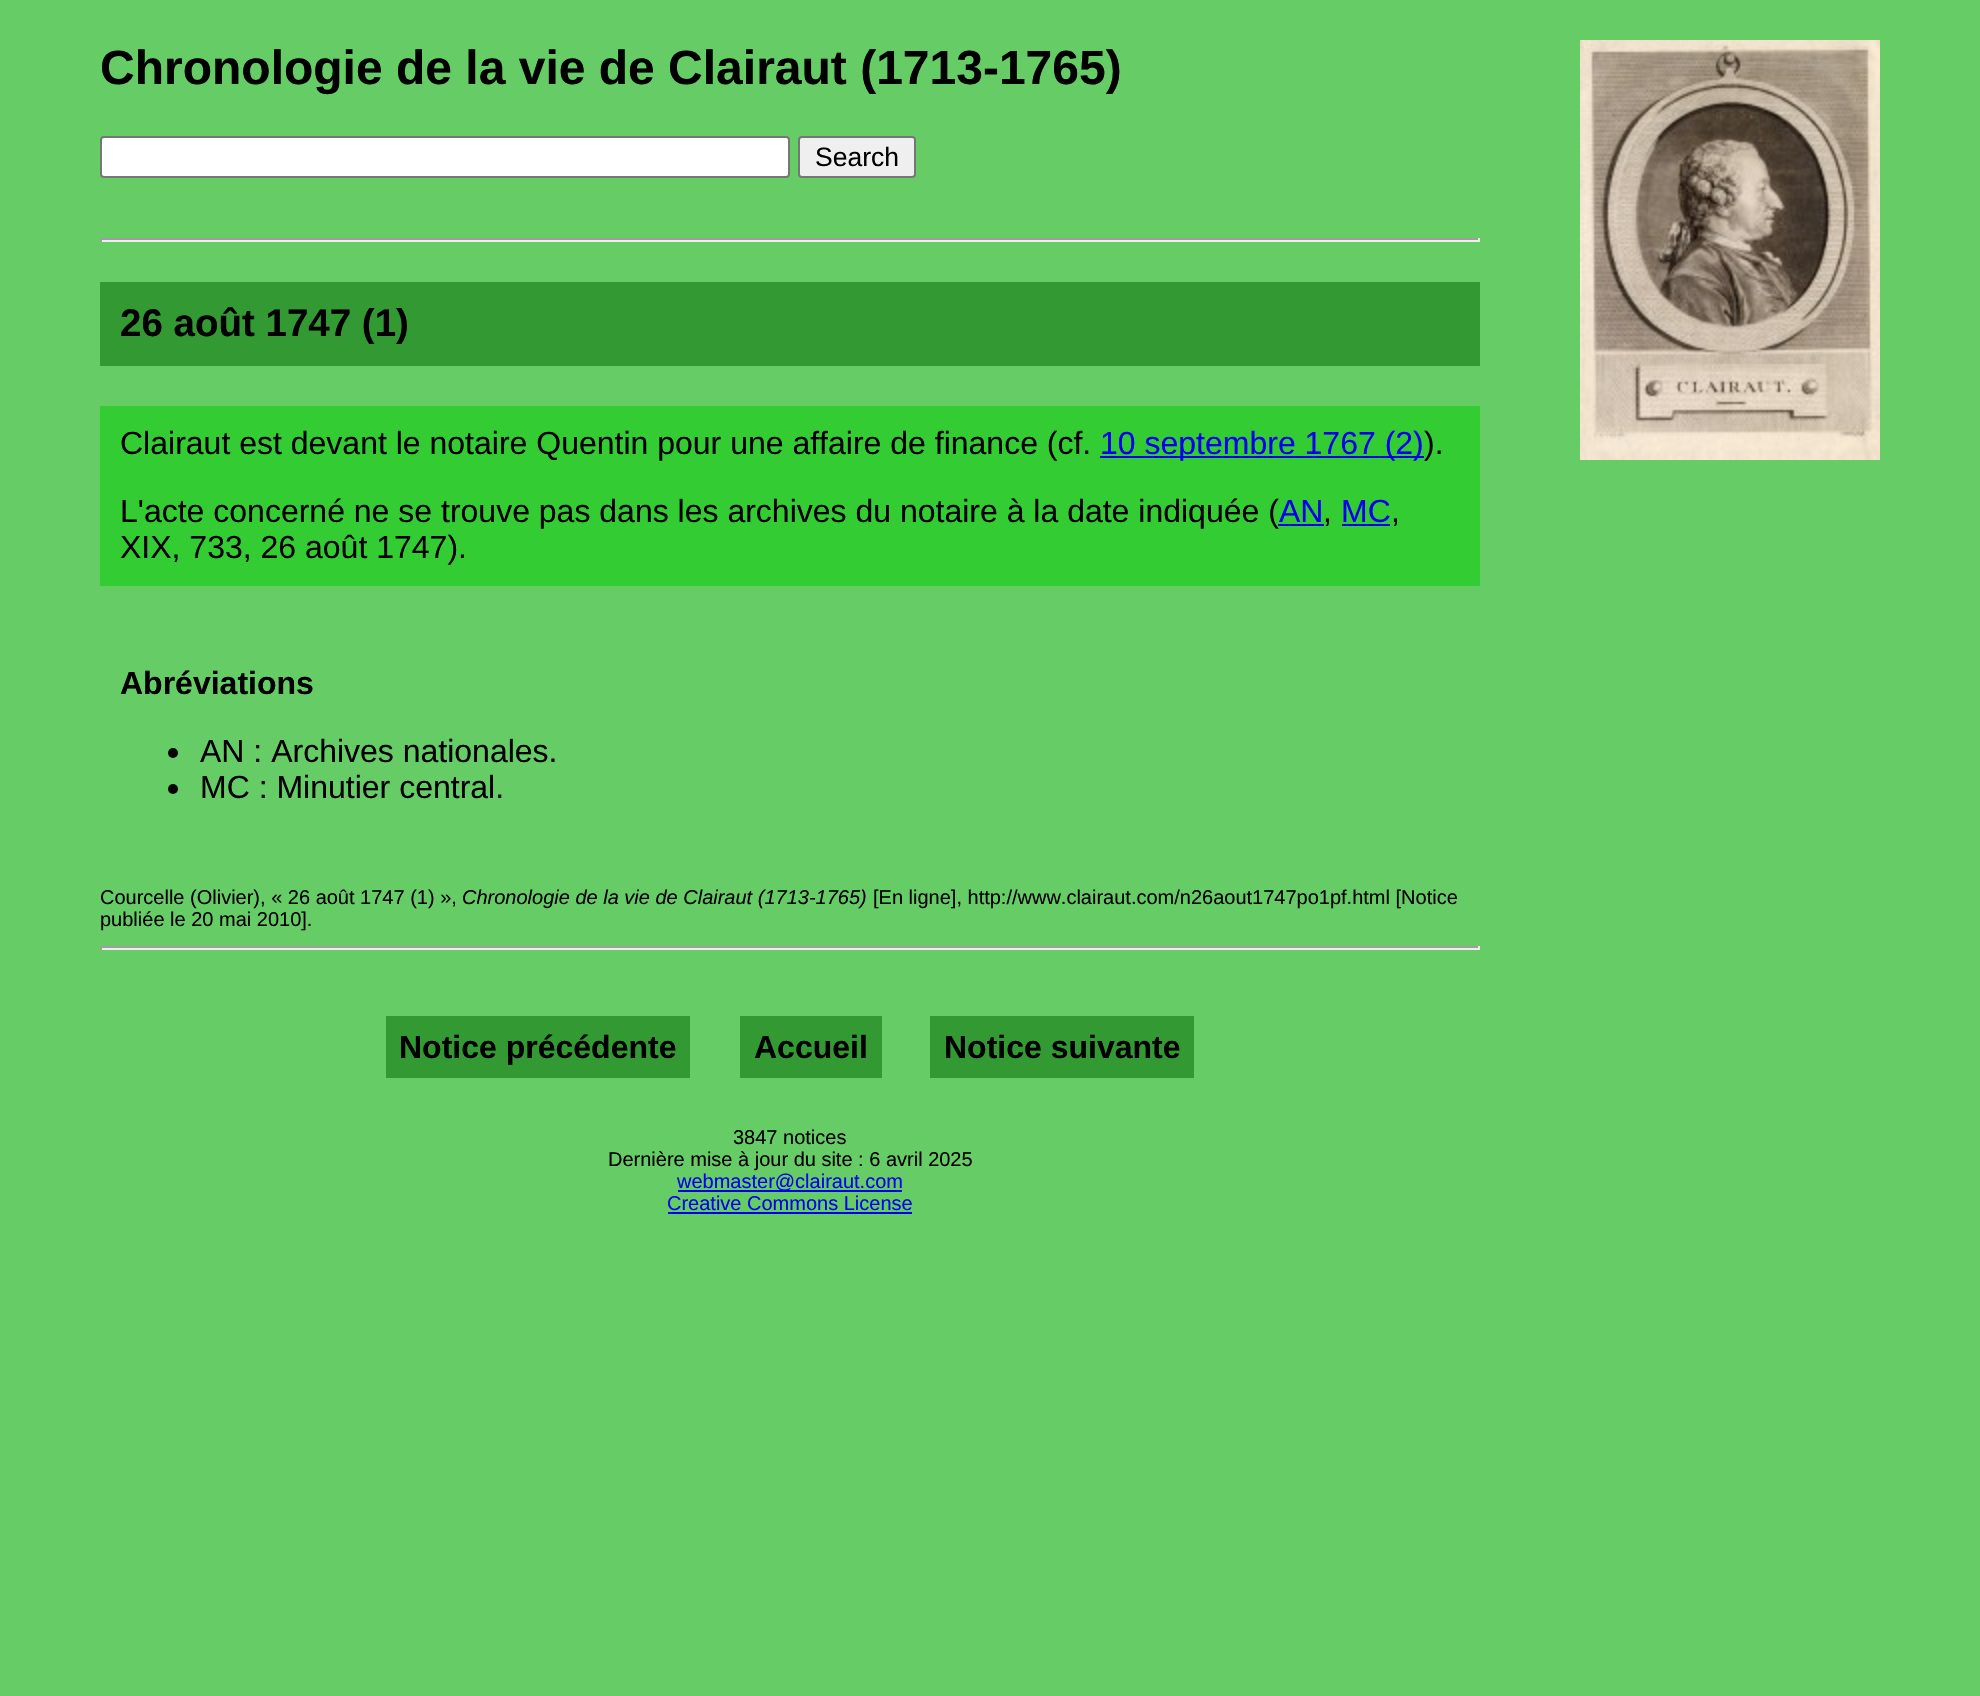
void draw(SkCanvas* canvas) {
  SkPaint paint;
  paint.setAntiAlias(true);
  auto face = [&](const char* family, int weight, float size, bool italic = false) {
    SkFontStyle style(weight, SkFontStyle::kNormal_Width,
      italic ? SkFontStyle::kItalic_Slant : SkFontStyle::kUpright_Slant);
    SkFont result(fontMgr->matchFamilyStyle(family, style), size);
    result.setSubpixel(true);
    return result;
  };
  auto paste = [&](const char* path, float x, float y, float w, float h) {
    auto image = SkImages::DeferredFromEncodedData(SkData::MakeFromFileName(path));
    canvas->drawImageRect(image, SkRect::MakeXYWH(x, y, w, h), SkSamplingOptions());
  };
  canvas->clear(0xff66cc66);
  paste("img/1.png", 1580, 40, 300, 420);
  paint.setColor(0xffffffff);
  canvas->drawRoundRect(SkRect::MakeXYWH(101, 137, 688, 40), 3, 3, paint);
  paint.setStroke(true);
  paint.setStrokeWidth(2);
  paint.setColor(0xff767676);
  canvas->drawRoundRect(SkRect::MakeXYWH(101, 137, 688, 40), 3, 3, paint);
  paint.setStroke(false);
  paint.setColor(0xffefefef);
  canvas->drawRoundRect(SkRect::MakeXYWH(799, 137, 116, 40), 3, 3, paint);
  paint.setStroke(true);
  paint.setColor(0xff767676);
  canvas->drawRoundRect(SkRect::MakeXYWH(799, 137, 116, 40), 3, 3, paint);
  paint.setStroke(false);
  {
    const struct { float x, y, w, h; SkColor color; } items[] = {
      {100, 238, 1380, 2, 0xff9f9f9f},
      {1478, 238, 2, 4, 0xffeeeeee},
      {100, 240, 1380, 2, 0xffeeeeee},
      {100, 238, 2, 4, 0xff9f9f9f},
      {100, 282, 1380, 84, 0xff339933},
      {100, 406, 1380, 180, 0xff33cc33},
      {1100, 456, 324, 2, 0xff0000ee},
      {1342, 524, 48, 2, 0xff0000ee},
    };
    for (auto [x, y, w, h, color] : items) {
      paint.setColor(color);
      canvas->drawRect(SkRect::MakeXYWH(x, y, w, h), paint);
    }
  }
  paint.setColor(0xff000000);
  canvas->drawCircle(173, 753, 5, paint);
  canvas->drawCircle(173, 789, 5, paint);
  {
    const struct { float x, y, w, h; SkColor color; } items[] = {
      {100, 946, 1380, 2, 0xff9f9f9f},
      {1478, 946, 2, 4, 0xffeeeeee},
      {100, 948, 1380, 2, 0xffeeeeee},
      {100, 946, 2, 4, 0xff9f9f9f},
      {386, 1016, 304, 62, 0xff339933},
      {740, 1016, 142, 62, 0xff339933},
      {930, 1016, 264, 62, 0xff339933},
      {678, 1190, 224, 2, 0xff0000ee},
      {668, 1212, 244, 2, 0xff0000ee},
    };
    for (auto [x, y, w, h, color] : items) {
      paint.setColor(color);
      canvas->drawRect(SkRect::MakeXYWH(x, y, w, h), paint);
    }
  }
  auto f0 = face("Liberation Sans", 700, 48);
  paint.setColor(0xff000000);
  canvas->drawString("Chronologie de la vie de Clairaut (1713-1765)", 100, 84, f0, paint);
  auto f1 = face("Liberation Sans", 400, 26.5f);
  canvas->drawString("Search", 815, 166, f1, paint);
  auto f2 = face("Liberation Sans", 700, 38.5f);
  canvas->drawString("26 août 1747 (1)", 120, 336, f2, paint);
  auto f3 = face("Liberation Sans", 400, 32);
  canvas->drawString("Clairaut est devant le notaire Quentin pour une affaire de finance (cf.", 120, 454, f3, paint);
  paint.setColor(0xff0000ee);
  canvas->drawString("10 septembre 1767 (2)", 1100, 454, f3, paint);
  paint.setColor(0xff000000);
  canvas->drawString(").", 1424, 454, f3, paint);
  canvas->drawString("L'acte concerné ne se trouve pas dans les archives du notaire à la date indiquée (", 120, 522, f3, paint);
  paint.setColor(0xff0000ee);
  canvas->drawString("AN", 1279, 522, f3, paint);
  canvas->drawRect(SkRect::MakeXYWH(1278, 524, 46, 2), paint);
  paint.setColor(0xff000000);
  canvas->drawString(",", 1323, 522, f3, paint);
  paint.setColor(0xff0000ee);
  canvas->drawString("MC", 1341, 522, f3, paint);
  paint.setColor(0xff000000);
  canvas->drawString(",", 1391, 522, f3, paint);
  canvas->drawString("XIX, 733, 26 août 1747).", 120, 558, f3, paint);
  auto f4 = face("Liberation Sans", 700, 32);
  canvas->drawString("Abréviations", 120, 694, f4, paint);
  canvas->drawString("AN : Archives nationales.", 200, 762, f3, paint);
  canvas->drawString("MC : Minutier central.", 200, 798, f3, paint);
  auto f5 = face("Liberation Sans", 400, 20);
  canvas->drawString("Courcelle (Olivier), « 26 août 1747 (1) »,", 100, 904, f5, paint);
  auto f6 = face("Liberation Sans", 400, 20, true);
  canvas->drawString("Chronologie de la vie de Clairaut (1713-1765)", 462, 904, f6, paint);
  canvas->drawString("[En ligne], http://www.clairaut.com/n26aout1747po1pf.html [Notice", 873, 904, f5, paint);
  canvas->drawString("publiée le 20 mai 2010].", 100, 926, f5, paint);
  {
    const struct { const char* s; float x, y; } items[] = {
      {"Notice précédente", 399, 1058},
      {"Accueil", 754, 1058},
      {"Notice suivante", 944, 1058},
    };
    for (auto [s, x, y] : items) {
      canvas->drawString(s, x, y, f4, paint);
    }
  }
  canvas->drawString("3847 notices", 733, 1144, f5, paint);
  canvas->drawString("Dernière mise à jour du site : 6 avril 2025", 608, 1166, f5, paint);
  paint.setColor(0xff0000ee);
  canvas->drawString("webmaster@clairaut.com", 677, 1188, f5, paint);
  canvas->drawString("Creative Commons License", 667, 1210, f5, paint);
}
